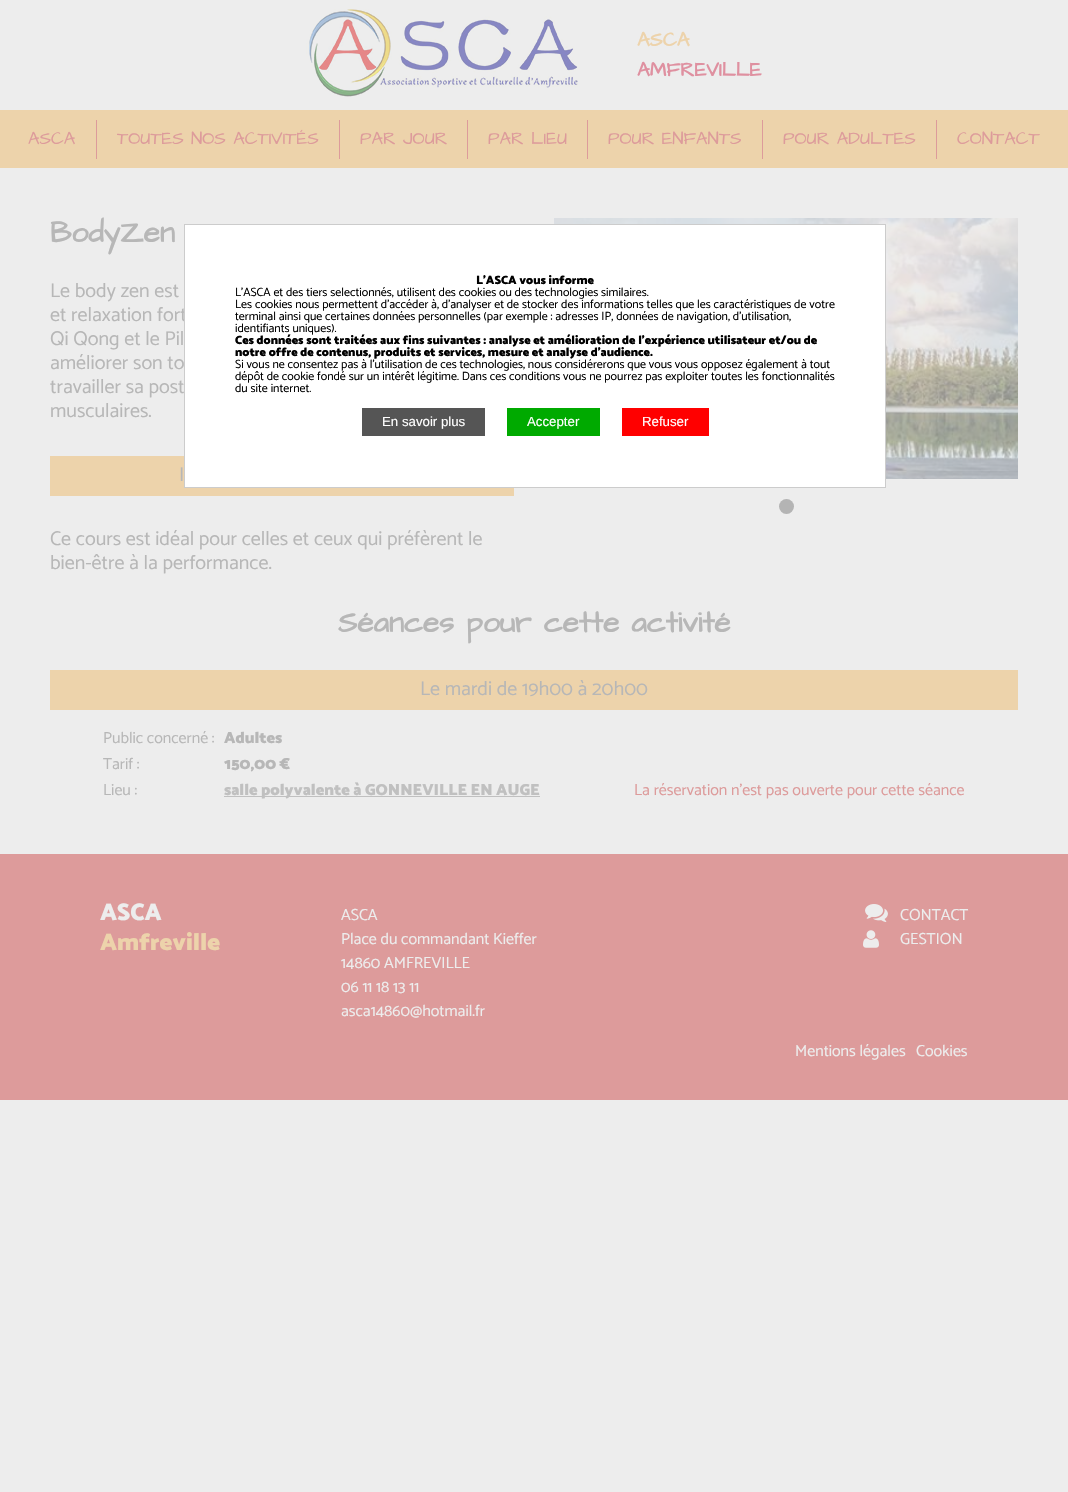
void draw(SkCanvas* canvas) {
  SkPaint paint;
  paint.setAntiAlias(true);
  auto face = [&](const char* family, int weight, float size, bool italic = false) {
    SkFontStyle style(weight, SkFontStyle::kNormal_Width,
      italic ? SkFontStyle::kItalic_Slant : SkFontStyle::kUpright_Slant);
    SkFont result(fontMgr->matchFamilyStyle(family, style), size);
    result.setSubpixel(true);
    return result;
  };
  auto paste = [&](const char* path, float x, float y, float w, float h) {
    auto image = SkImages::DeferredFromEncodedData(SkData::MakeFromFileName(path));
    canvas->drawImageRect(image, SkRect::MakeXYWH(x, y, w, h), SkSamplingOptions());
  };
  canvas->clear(0xffededed);
  paste("img/1.png", 306, 9, 272, 88);
  {
    const struct { float x, y, w, h; SkColor color; } items[] = {
      {0, 110, 1068, 58, 0xffedd3ab},
      {96, 120, 1, 39, 0xffdd9b9b},
      {339, 120, 1, 39, 0xffdd9b9b},
      {467, 120, 1, 39, 0xffdd9b9b},
      {587, 120, 1, 39, 0xffdd9b9b},
      {762, 120, 1, 39, 0xffdd9b9b},
      {936, 120, 1, 39, 0xffdd9b9b},
      {50, 456, 464, 40, 0xffedd3ab},
    };
    for (auto [x, y, w, h, color] : items) {
      paint.setColor(color);
      canvas->drawRect(SkRect::MakeXYWH(x, y, w, h), paint);
    }
  }
  paste("img/2.png", 554, 218, 464, 261);
  paint.setColor(0xffb4b4b4);
  canvas->drawCircle(786.5f, 506.5f, 7.5f, paint);
  {
    const struct { float x, y, w, h; SkColor color; } items[] = {
      {50, 670, 968, 40, 0xffedd3ab},
      {224, 796, 316, 1, 0xffc0c0c0},
      {0, 854, 1068, 246, 0xffdd9b9b},
    };
    for (auto [x, y, w, h, color] : items) {
      paint.setColor(color);
      canvas->drawRect(SkRect::MakeXYWH(x, y, w, h), paint);
    }
  }
  paste("img/3.png", 865, 904, 23, 18);
  paste("img/4.png", 863, 930, 16, 18);
  auto f0 = face("Architects Daughter", 700, 20);
  paint.setColor(0xffedd3ab);
  canvas->drawString("ASCA", 637, 46, f0, paint);
  paint.setColor(0xffdf90a0);
  canvas->drawString("AMFREVILLE", 637, 76, f0, paint);
  auto f1 = face("Architects Daughter", 400, 18);
  paint.setColor(0xffdd9b9b);
  {
    const struct { const char* s; float x, y; } items[] = {
      {"ASCA", 28, 144},
      {"TOUTES NOS ACTIVITÉS", 117, 144},
      {"PAR JOUR", 360, 144},
      {"PAR LIEU", 488, 144},
      {"POUR ENFANTS", 608, 144},
      {"POUR ADULTES", 783, 144},
      {"CONTACT", 957, 144},
    };
    for (auto [s, x, y] : items) {
      canvas->drawString(s, x, y, f1, paint);
    }
  }
  auto f2 = face("Architects Daughter", 700, 30);
  paint.setColor(0xffb7b7b7);
  canvas->drawString("BodyZen", 50, 242, f2, paint);
  auto f3 = face("Catamaran", 400, 20);
  {
    const struct { const char* s; float x, y; } items[] = {
      {"Le body zen est", 50, 297},
      {"et relaxation fort", 50, 321},
      {"Qi Qong et le Pil", 50, 345},
      {"améliorer son to", 50, 369},
      {"travailler sa post", 50, 393},
      {"musculaires.", 50, 417},
      {"I", 179, 481},
      {"Ce cours est idéal pour celles et ceux qui préfèrent le", 50, 545},
      {"bien-être à la performance.", 50, 569},
    };
    for (auto [s, x, y] : items) {
      canvas->drawString(s, x, y, f3, paint);
    }
  }
  canvas->drawString("Séances pour cette activité", 338, 632, f2, paint);
  canvas->drawString("Le mardi de 19h00 à 20h00", 420, 695, f3, paint);
  auto f4 = face("Catamaran", 400, 16);
  canvas->drawString("Public concerné :", 103, 743, f4, paint);
  auto f5 = face("Catamaran", 900, 16);
  canvas->drawString("Adultes", 224, 743, f5, paint);
  canvas->drawString("Tarif :", 103, 769, f4, paint);
  canvas->drawString("150,00 €", 224, 769, f5, paint);
  canvas->drawString("Lieu :", 103, 795, f4, paint);
  paint.setColor(0xffc0c0c0);
  canvas->drawString("salle polyvalente à GONNEVILLE EN AUGE", 224, 795, f5, paint);
  paint.setColor(0xffdd9b9b);
  canvas->drawString("La réservation n'est pas ouverte pour cette séance", 634, 795, f4, paint);
  paint.setColor(0xffffffff);
  canvas->drawRect(SkRect::MakeXYWH(184.5f, 224.5f, 701, 263), paint);
  paint.setStroke(true);
  paint.setStrokeWidth(1);
  paint.setColor(0xffcccccc);
  canvas->drawRect(SkRect::MakeXYWH(184.5f, 224.5f, 701, 263), paint);
  auto f6 = face("Catamaran", 900, 12);
  paint.setStroke(false);
  paint.setColor(0xff000000);
  canvas->drawString("L'ASCA vous informe", 476, 284, f6, paint);
  auto f7 = face("Catamaran", 400, 12);
  {
    const struct { const char* s; float x, y; } items[] = {
      {"L'ASCA et des tiers selectionnés, utilisent des cookies ou des technologies similaires.", 235, 296},
      {"Les cookies nous permettent d'accéder à, d'analyser et de stocker des informations telles que les caractéristiques de votre", 235, 308},
      {"terminal ainsi que certaines données personnelles (par exemple : adresses IP, données de navigation, d'utilisation,", 235, 320},
      {"identifiants uniques).", 235, 332},
    };
    for (auto [s, x, y] : items) {
      canvas->drawString(s, x, y, f7, paint);
    }
  }
  canvas->drawString("Ces données sont traitées aux fins suivantes : analyse et amélioration de l'expérience utilisateur et/ou de", 235, 344, f6, paint);
  canvas->drawString("notre offre de contenus, produits et services, mesure et analyse d'audience.", 235, 356, f6, paint);
  {
    const struct { const char* s; float x, y; } items[] = {
      {"Si vous ne consentez pas à l'utilisation de ces technologies, nous considérerons que vous vous opposez également à tout", 235, 368},
      {"dépôt de cookie fondé sur un intérêt légitime. Dans ces conditions vous ne pourrez pas exploiter toutes les fonctionnalités", 235, 380},
      {"du site internet.", 235, 392},
    };
    for (auto [s, x, y] : items) {
      canvas->drawString(s, x, y, f7, paint);
    }
  }
  paint.setColor(0xff555555);
  canvas->drawRect(SkRect::MakeXYWH(362, 408, 123, 28), paint);
  auto f8 = face("Liberation Sans", 400, 13.25f);
  paint.setColor(0xffffffff);
  canvas->drawString("En savoir plus", 382, 426, f8, paint);
  paint.setColor(0xff00aa00);
  canvas->drawRect(SkRect::MakeXYWH(507, 408, 93, 28), paint);
  paint.setColor(0xffffffff);
  canvas->drawString("Accepter", 527, 426, f8, paint);
  paint.setColor(0xffff0000);
  canvas->drawRect(SkRect::MakeXYWH(622, 408, 87, 28), paint);
  paint.setColor(0xffffffff);
  canvas->drawString("Refuser", 642, 426, f8, paint);
  auto f9 = face("Catamaran", 900, 24);
  paint.setColor(0xffededed);
  canvas->drawString("ASCA", 100, 920, f9, paint);
  paint.setColor(0xffedd3ab);
  canvas->drawString("Amfreville", 100, 950, f9, paint);
  paint.setColor(0xffededed);
  {
    const struct { const char* s; float x, y; } items[] = {
      {"ASCA", 341, 920},
      {"Place du commandant Kieffer", 341, 944},
      {"14860 AMFREVILLE", 341, 968},
      {"06 11 18 13 11", 341, 992},
      {"asca14860@hotmail.fr", 341, 1016},
      {"CONTACT", 900, 920},
      {"GESTION", 900, 944},
      {"Mentions légales", 795, 1056},
      {"Cookies", 916, 1056},
    };
    for (auto [s, x, y] : items) {
      canvas->drawString(s, x, y, f4, paint);
    }
  }
}
